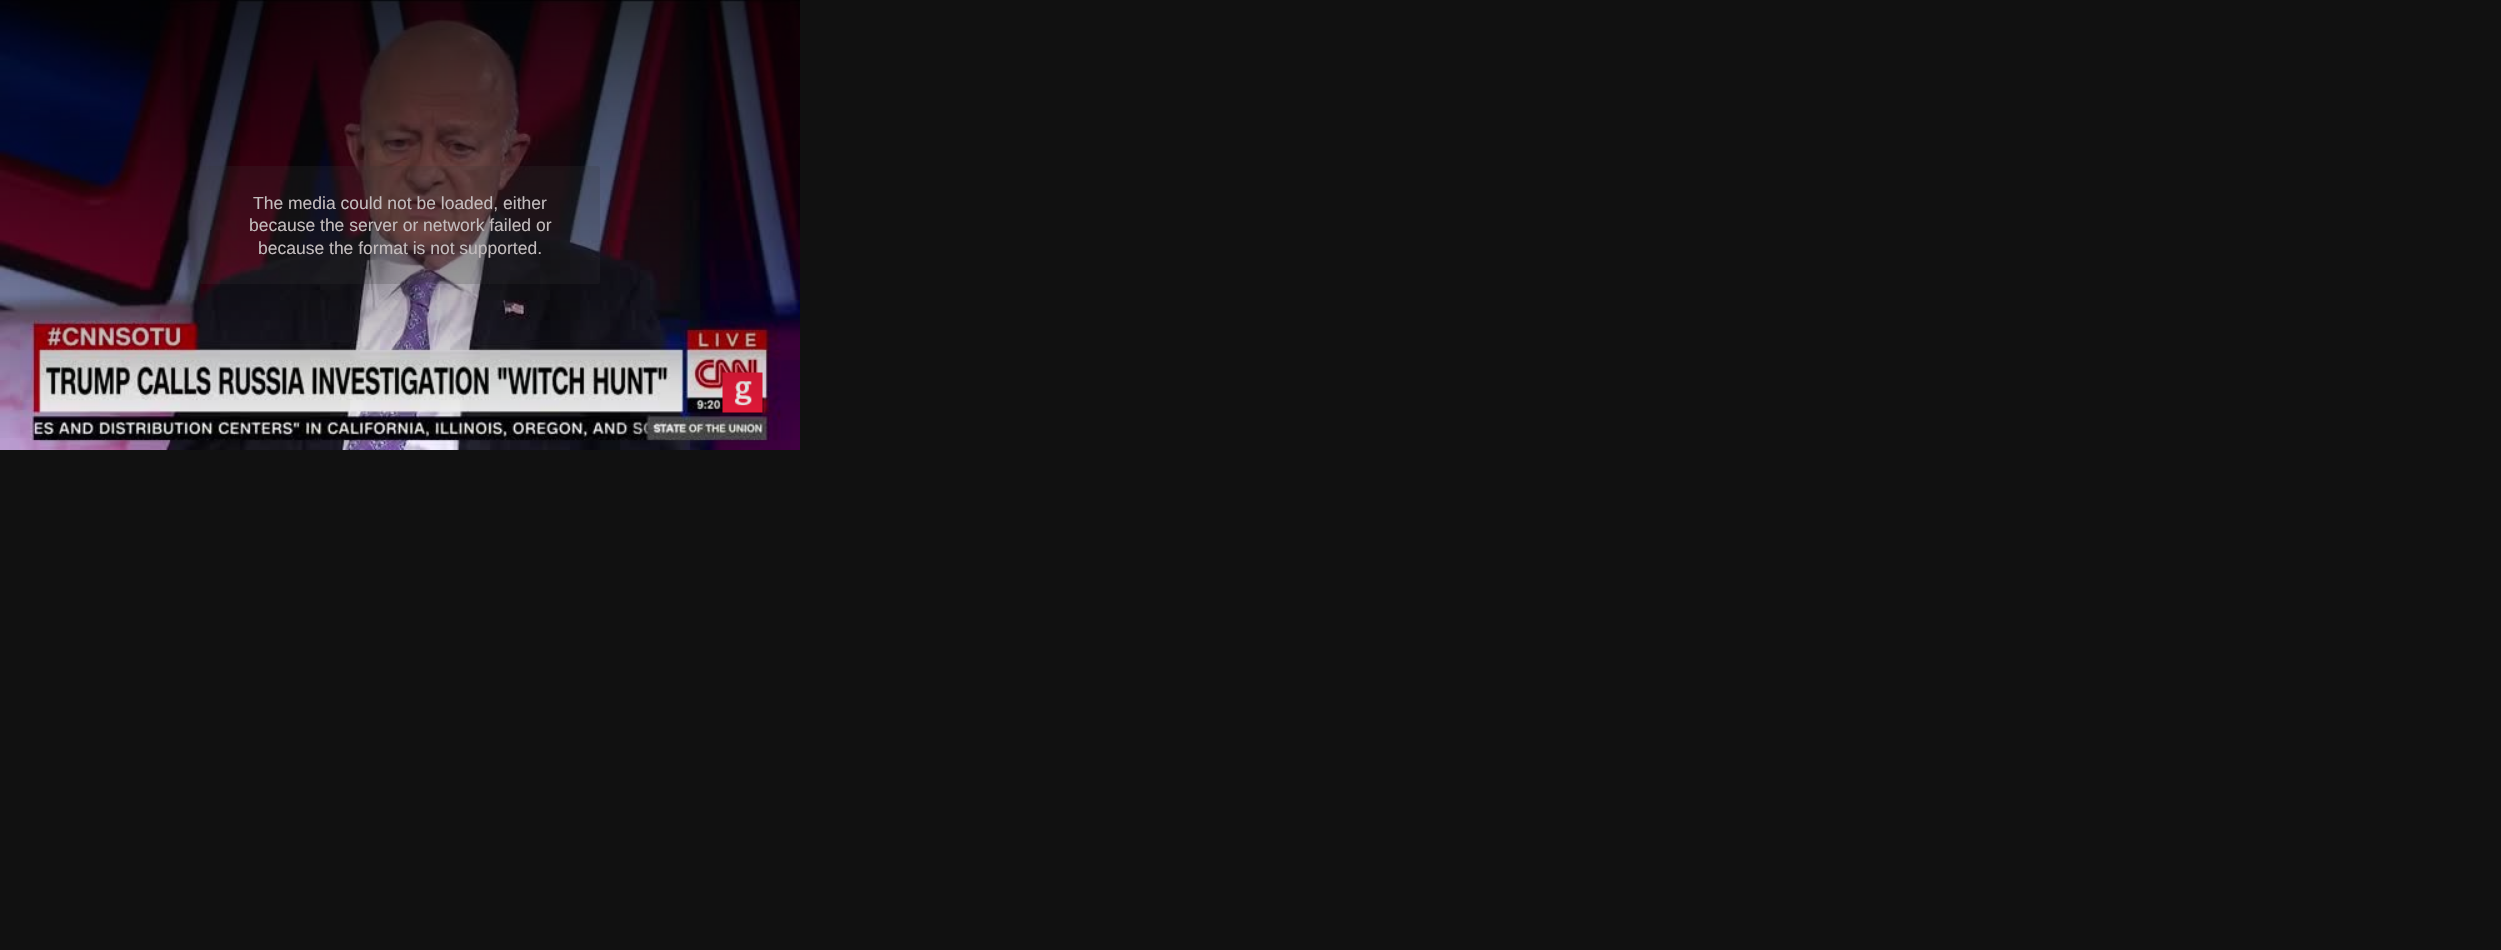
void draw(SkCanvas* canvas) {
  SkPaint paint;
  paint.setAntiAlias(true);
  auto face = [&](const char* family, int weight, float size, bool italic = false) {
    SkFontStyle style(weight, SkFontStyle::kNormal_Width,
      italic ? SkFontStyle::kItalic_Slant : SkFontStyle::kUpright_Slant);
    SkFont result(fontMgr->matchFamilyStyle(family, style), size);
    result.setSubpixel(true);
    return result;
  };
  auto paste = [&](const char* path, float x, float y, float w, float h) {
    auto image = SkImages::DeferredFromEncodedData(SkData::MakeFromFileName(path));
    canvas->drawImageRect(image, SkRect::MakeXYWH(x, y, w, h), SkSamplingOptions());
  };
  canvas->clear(0xff111111);
  paste("img/1.png", 0, 0, 800, 450);
  paste("img/2.png", 722, 372, 41, 41);
  {
    const SkColor colors[] = {0xcc000000, 0x00000000};
    const float stops[] = {0, 1};
    const SkPoint ends[] = {{400, 0}, {400, 450}};
    paint.setShader(SkGradientShader::MakeLinear(ends, colors, stops, 2, SkTileMode::kClamp));
    paint.setAlpha(255);
  }
  canvas->drawRect(SkRect::MakeXYWH(0, 0, 800, 438), paint);
  paint.setShader(nullptr);
  paint.setColor(0x36323232);
  canvas->drawRoundRect(SkRect::MakeXYWH(200, 166, 400, 118), 2.5f, 2.5f, paint);
  auto f0 = face("Liberation Sans", 400, 17.5f);
  paint.setColor(0xffc3bcbd);
  {
    const struct { const char* s; float x, y; } items[] = {
      {"The media could not be loaded, either", 253, 209},
      {"because the server or network failed or", 249, 231},
      {"because the format is not supported.", 258, 254},
    };
    for (auto [s, x, y] : items) {
      canvas->drawString(s, x, y, f0, paint);
    }
  }
}
